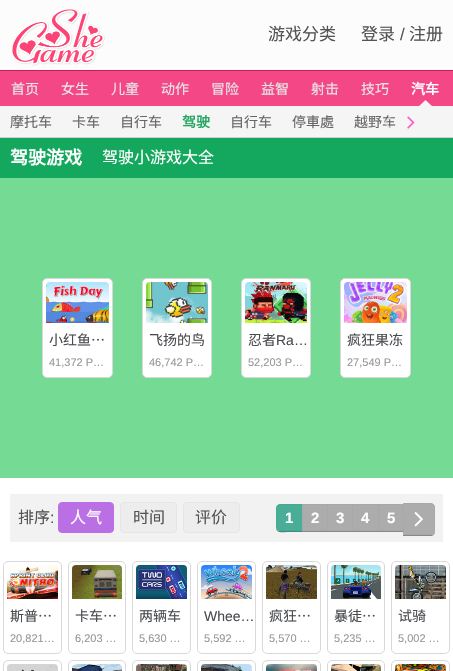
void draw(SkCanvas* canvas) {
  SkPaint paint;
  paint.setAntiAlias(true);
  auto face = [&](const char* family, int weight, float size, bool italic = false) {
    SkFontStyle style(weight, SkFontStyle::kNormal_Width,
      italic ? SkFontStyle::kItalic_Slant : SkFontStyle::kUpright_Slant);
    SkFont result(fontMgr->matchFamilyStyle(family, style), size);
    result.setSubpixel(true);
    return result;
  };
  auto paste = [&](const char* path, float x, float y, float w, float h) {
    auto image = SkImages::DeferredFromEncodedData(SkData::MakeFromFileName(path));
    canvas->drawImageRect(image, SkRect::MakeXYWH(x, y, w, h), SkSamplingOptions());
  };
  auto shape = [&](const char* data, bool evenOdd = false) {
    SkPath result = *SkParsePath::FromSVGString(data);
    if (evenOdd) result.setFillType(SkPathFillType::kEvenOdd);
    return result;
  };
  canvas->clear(0xffffffff);
  paint.setColor(0xfffcfcfc);
  canvas->drawRect(SkRect::MakeXYWH(0, 0, 453, 70), paint);
  paste("img/1.png", 12, 9, 93, 57);
  paint.setColor(0xfff44785);
  canvas->drawRect(SkRect::MakeXYWH(0, 71, 453, 35), paint);
  paint.setColor(0xffc41d57);
  canvas->drawRect(SkRect::MakeXYWH(0, 70, 453, 1), paint);
  paste("img/2.png", 419, 100, 13, 6);
  paint.setColor(0xfff5f5f5);
  canvas->drawRect(SkRect::MakeXYWH(0, 106, 453, 31), paint);
  paint.setColor(0xffd0d0d0);
  canvas->drawRect(SkRect::MakeXYWH(0, 137, 453, 1), paint);
  paste("img/4.png", 407, 116, 8, 13);
  paint.setColor(0xff14a75e);
  canvas->drawRect(SkRect::MakeXYWH(0, 138, 453, 40), paint);
  paint.setColor(0xff74da94);
  canvas->drawRect(SkRect::MakeXYWH(0, 178, 453, 300), paint);
  paint.setColor(0xffffffff);
  canvas->drawRoundRect(SkRect::MakeXYWH(42.5f, 278.5f, 70, 99), 4.5f, 4.5f, paint);
  paint.setStroke(true);
  paint.setStrokeWidth(1);
  paint.setColor(0xffd9d9d9);
  canvas->drawRoundRect(SkRect::MakeXYWH(42.5f, 278.5f, 70, 99), 4.5f, 4.5f, paint);
  paste("img/5.png", 46, 282, 63, 41);
  paint.setStroke(false);
  paint.setColor(0xffffffff);
  canvas->drawRoundRect(SkRect::MakeXYWH(142.5f, 278.5f, 69, 99), 4.5f, 4.5f, paint);
  paint.setStroke(true);
  paint.setColor(0xffd9d9d9);
  canvas->drawRoundRect(SkRect::MakeXYWH(142.5f, 278.5f, 69, 99), 4.5f, 4.5f, paint);
  paste("img/6.png", 146, 282, 62, 41);
  paint.setStroke(false);
  paint.setColor(0xffffffff);
  canvas->drawRoundRect(SkRect::MakeXYWH(241.5f, 278.5f, 69, 99), 4.5f, 4.5f, paint);
  paint.setStroke(true);
  paint.setColor(0xffd9d9d9);
  canvas->drawRoundRect(SkRect::MakeXYWH(241.5f, 278.5f, 69, 99), 4.5f, 4.5f, paint);
  paste("img/7.png", 245, 282, 62, 41);
  paint.setStroke(false);
  paint.setColor(0xffffffff);
  canvas->drawRoundRect(SkRect::MakeXYWH(340.5f, 278.5f, 70, 99), 4.5f, 4.5f, paint);
  paint.setStroke(true);
  paint.setColor(0xffd9d9d9);
  canvas->drawRoundRect(SkRect::MakeXYWH(340.5f, 278.5f, 70, 99), 4.5f, 4.5f, paint);
  paste("img/8.png", 344, 282, 63, 41);
  paint.setStroke(false);
  paint.setColor(0xfff2f2f2);
  canvas->drawRect(SkRect::MakeXYWH(10, 494, 433, 48), paint);
  paint.setColor(0xffba6fe5);
  canvas->drawRoundRect(SkRect::MakeXYWH(58.5f, 502.5f, 55, 30), 3.5f, 3.5f, paint);
  paint.setStroke(true);
  canvas->drawRoundRect(SkRect::MakeXYWH(58.5f, 502.5f, 55, 30), 3.5f, 3.5f, paint);
  paint.setStroke(false);
  paint.setColor(0xffededed);
  canvas->drawRoundRect(SkRect::MakeXYWH(120.5f, 502.5f, 56, 30), 3.5f, 3.5f, paint);
  paint.setStroke(true);
  paint.setColor(0xffe5e5e5);
  canvas->drawRoundRect(SkRect::MakeXYWH(120.5f, 502.5f, 56, 30), 3.5f, 3.5f, paint);
  paint.setStroke(false);
  paint.setColor(0xffededed);
  canvas->drawRoundRect(SkRect::MakeXYWH(183.5f, 502.5f, 56, 30), 3.5f, 3.5f, paint);
  paint.setStroke(true);
  paint.setColor(0xffe5e5e5);
  canvas->drawRoundRect(SkRect::MakeXYWH(183.5f, 502.5f, 56, 30), 3.5f, 3.5f, paint);
  paint.setStroke(false);
  paint.setColor(0xff3c8e7c);
  canvas->drawPath(shape("M276 527C276 534 282.5 532 287.5 532H303V531H280C278 531 276 529 276 527Z"), paint);
  paint.setColor(0xff49ad97);
  canvas->drawPath(shape("M280 504.5H302.5V530.5H280C278 530.5 276.5 529 276.5 527V508C276.5 506 278 504.5 280 504.5Z"), paint);
  paint.setStroke(true);
  paint.setColor(0xff47a893);
  canvas->drawPath(shape("M280 504.5H302.5V530.5H280C278 530.5 276.5 529 276.5 527V508C276.5 506 278 504.5 280 504.5Z"), paint);
  paint.setStroke(false);
  paint.setColor(0xff888888);
  canvas->drawRect(SkRect::MakeXYWH(302, 531, 102, 1), paint);
  paint.setColor(0xffacacac);
  canvas->drawRect(SkRect::MakeXYWH(302.5f, 504.5f, 25, 26), paint);
  paint.setStroke(true);
  paint.setColor(0xffa8a8a8);
  canvas->drawRect(SkRect::MakeXYWH(302.5f, 504.5f, 25, 26), paint);
  paint.setStroke(false);
  paint.setColor(0xffacacac);
  canvas->drawRect(SkRect::MakeXYWH(327.5f, 504.5f, 25, 26), paint);
  paint.setStroke(true);
  paint.setColor(0xffa8a8a8);
  canvas->drawRect(SkRect::MakeXYWH(327.5f, 504.5f, 25, 26), paint);
  paint.setStroke(false);
  paint.setColor(0xffacacac);
  canvas->drawRect(SkRect::MakeXYWH(352.5f, 504.5f, 26, 26), paint);
  paint.setStroke(true);
  paint.setColor(0xffa8a8a8);
  canvas->drawRect(SkRect::MakeXYWH(352.5f, 504.5f, 26, 26), paint);
  paint.setStroke(false);
  paint.setColor(0xffacacac);
  canvas->drawRect(SkRect::MakeXYWH(378.5f, 504.5f, 25, 26), paint);
  paint.setStroke(true);
  paint.setColor(0xffa8a8a8);
  canvas->drawRect(SkRect::MakeXYWH(378.5f, 504.5f, 25, 26), paint);
  paint.setStroke(false);
  paint.setColor(0xff888888);
  canvas->drawPath(shape("M403 535V536H431C433 536 435 534 435 532V531C435 533 433 535 431 535Z"), paint);
  paint.setColor(0xffacacac);
  canvas->drawPath(shape("M403.5 503.5H431C433 503.5 434.5 505 434.5 507V531C434.5 533 433 534.5 431 534.5H403.5Z"), paint);
  paint.setStroke(true);
  paint.setColor(0xffa8a8a8);
  canvas->drawPath(shape("M403.5 503.5H431C433 503.5 434.5 505 434.5 507V531C434.5 533 433 534.5 431 534.5H403.5Z"), paint);
  paste("img/9.png", 414, 512, 9, 15);
  paint.setColor(0xffd9d9d9);
  canvas->drawRoundRect(SkRect::MakeXYWH(3.5f, 561.5f, 58, 92), 4.5f, 4.5f, paint);
  paste("img/10.png", 7, 565, 51, 34);
  canvas->drawRoundRect(SkRect::MakeXYWH(68.5f, 561.5f, 57, 92), 4.5f, 4.5f, paint);
  paste("img/11.png", 72, 565, 50, 34);
  canvas->drawRoundRect(SkRect::MakeXYWH(132.5f, 561.5f, 58, 92), 4.5f, 4.5f, paint);
  paste("img/12.png", 136, 565, 51, 34);
  canvas->drawRoundRect(SkRect::MakeXYWH(197.5f, 561.5f, 58, 92), 4.5f, 4.5f, paint);
  paste("img/13.png", 201, 565, 51, 34);
  canvas->drawRoundRect(SkRect::MakeXYWH(262.5f, 561.5f, 58, 92), 4.5f, 4.5f, paint);
  paste("img/14.png", 266, 565, 51, 34);
  canvas->drawRoundRect(SkRect::MakeXYWH(327.5f, 561.5f, 57, 92), 4.5f, 4.5f, paint);
  paste("img/15.png", 331, 565, 50, 34);
  canvas->drawRoundRect(SkRect::MakeXYWH(391.5f, 561.5f, 58, 92), 4.5f, 4.5f, paint);
  paste("img/16.png", 395, 565, 51, 34);
  canvas->drawRoundRect(SkRect::MakeXYWH(3.5f, 660.5f, 58, 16), 4.5f, 4.5f, paint);
  paste("img/17.png", 7, 664, 51, 7);
  canvas->drawRoundRect(SkRect::MakeXYWH(68.5f, 660.5f, 57, 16), 4.5f, 4.5f, paint);
  paste("img/18.png", 72, 664, 50, 7);
  canvas->drawRoundRect(SkRect::MakeXYWH(132.5f, 660.5f, 58, 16), 4.5f, 4.5f, paint);
  paste("img/19.png", 136, 664, 51, 7);
  canvas->drawRoundRect(SkRect::MakeXYWH(197.5f, 660.5f, 58, 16), 4.5f, 4.5f, paint);
  paste("img/20.png", 201, 664, 51, 7);
  canvas->drawRoundRect(SkRect::MakeXYWH(262.5f, 660.5f, 58, 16), 4.5f, 4.5f, paint);
  paste("img/21.png", 266, 664, 51, 7);
  canvas->drawRoundRect(SkRect::MakeXYWH(327.5f, 660.5f, 57, 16), 4.5f, 4.5f, paint);
  paste("img/22.png", 331, 664, 50, 7);
  canvas->drawRoundRect(SkRect::MakeXYWH(391.5f, 660.5f, 58, 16), 4.5f, 4.5f, paint);
  paste("img/23.png", 395, 664, 51, 7);
  auto f0 = face("Noto Sans CJK SC", 400, 17);
  paint.setStroke(false);
  paint.setColor(0xff545454);
  canvas->drawString("游戏分类", 268, 40, f0, paint);
  canvas->drawString("登录", 361, 40, f0, paint);
  auto f1 = face("Liberation Sans", 400, 17);
  canvas->drawString("/", 400, 40, f1, paint);
  canvas->drawString("注册", 409, 40, f0, paint);
  auto f2 = face("Noto Sans CJK SC", 400, 14);
  paint.setColor(0xffe7e7e7);
  {
    const struct { const char* s; float x, y; } items[] = {
      {"首页", 11, 94},
      {"女生", 61, 94},
      {"儿童", 111, 94},
      {"动作", 161, 94},
      {"冒险", 211, 94},
      {"益智", 261, 94},
      {"射击", 311, 94},
      {"技巧", 361, 94},
    };
    for (auto [s, x, y] : items) {
      canvas->drawString(s, x, y, f2, paint);
    }
  }
  auto f3 = face("Noto Sans CJK SC", 700, 14);
  paint.setColor(0xffffffff);
  canvas->drawString("汽车", 411, 94, f3, paint);
  paint.setColor(0xff666666);
  {
    const struct { const char* s; float x, y; } items[] = {
      {"摩托车", 10, 127},
      {"卡车", 72, 127},
      {"自行车", 120, 127},
    };
    for (auto [s, x, y] : items) {
      canvas->drawString(s, x, y, f2, paint);
    }
  }
  paint.setColor(0xff22a660);
  canvas->drawString("驾驶", 182, 127, f3, paint);
  paint.setColor(0xff666666);
  {
    const struct { const char* s; float x, y; } items[] = {
      {"自行车", 230, 127},
      {"停車處", 292, 127},
      {"越野车", 354, 127},
    };
    for (auto [s, x, y] : items) {
      canvas->drawString(s, x, y, f2, paint);
    }
  }
  paste("img/3.png", 383, 116, 8, 12);
  auto f4 = face("Noto Sans CJK SC", 700, 18);
  paint.setColor(0xffffffff);
  canvas->drawString("驾驶游戏", 10, 164, f4, paint);
  auto f5 = face("Noto Sans CJK SC", 400, 16);
  canvas->drawString("驾驶小游戏大全", 102, 163, f5, paint);
  paint.setColor(0xff494b4f);
  canvas->drawString("小红鱼…", 49, 345, f2, paint);
  auto f6 = face("Liberation Sans", 400, 11);
  paint.setColor(0xff95979b);
  canvas->drawString("41,372 P…", 49, 366, f6, paint);
  paint.setColor(0xff494b4f);
  canvas->drawString("飞扬的鸟", 149, 345, f2, paint);
  paint.setColor(0xff95979b);
  canvas->drawString("46,742 P…", 149, 366, f6, paint);
  paint.setColor(0xff494b4f);
  canvas->drawString("忍者", 248, 345, f2, paint);
  auto f7 = face("Liberation Sans", 400, 14);
  canvas->drawString("Ra…", 276, 345, f7, paint);
  paint.setColor(0xff95979b);
  canvas->drawString("52,203 P…", 248, 366, f6, paint);
  paint.setColor(0xff494b4f);
  canvas->drawString("疯狂果冻", 347, 345, f2, paint);
  paint.setColor(0xff95979b);
  canvas->drawString("27,549 P…", 347, 366, f6, paint);
  paint.setColor(0xff545454);
  canvas->drawString("排序", 18, 523, f5, paint);
  auto f8 = face("Liberation Sans", 400, 16);
  canvas->drawString(":", 50, 523, f8, paint);
  paint.setColor(0xffffffff);
  canvas->drawString("人气", 70, 523, f5, paint);
  paint.setColor(0xff545454);
  canvas->drawString("时间", 133, 523, f5, paint);
  canvas->drawString("评价", 195, 523, f5, paint);
  auto f9 = face("Liberation Sans", 700, 15);
  paint.setColor(0xffffffff);
  {
    const struct { const char* s; float x, y; } items[] = {
      {"1", 285, 523},
      {"2", 311, 523},
      {"3", 336, 523},
      {"4", 361, 523},
      {"5", 387, 523},
    };
    for (auto [s, x, y] : items) {
      canvas->drawString(s, x, y, f9, paint);
    }
  }
  paint.setColor(0xff494b4f);
  canvas->drawString("斯普…", 10, 621, f2, paint);
  paint.setColor(0xff95979b);
  canvas->drawString("20,821…", 10, 642, f6, paint);
  paint.setColor(0xff494b4f);
  canvas->drawString("卡车…", 75, 621, f2, paint);
  paint.setColor(0xff95979b);
  canvas->drawString("6,203 …", 75, 642, f6, paint);
  paint.setColor(0xff494b4f);
  canvas->drawString("两辆车", 139, 621, f2, paint);
  paint.setColor(0xff95979b);
  canvas->drawString("5,630 …", 139, 642, f6, paint);
  paint.setColor(0xff494b4f);
  canvas->drawString("Whee…", 204, 621, f7, paint);
  paint.setColor(0xff95979b);
  canvas->drawString("5,592 …", 204, 642, f6, paint);
  paint.setColor(0xff494b4f);
  canvas->drawString("疯狂…", 269, 621, f2, paint);
  paint.setColor(0xff95979b);
  canvas->drawString("5,570 …", 269, 642, f6, paint);
  paint.setColor(0xff494b4f);
  canvas->drawString("暴徒…", 334, 621, f2, paint);
  paint.setColor(0xff95979b);
  canvas->drawString("5,235 …", 334, 642, f6, paint);
  paint.setColor(0xff494b4f);
  canvas->drawString("试骑", 398, 621, f2, paint);
  paint.setColor(0xff95979b);
  canvas->drawString("5,002 …", 398, 642, f6, paint);
}
